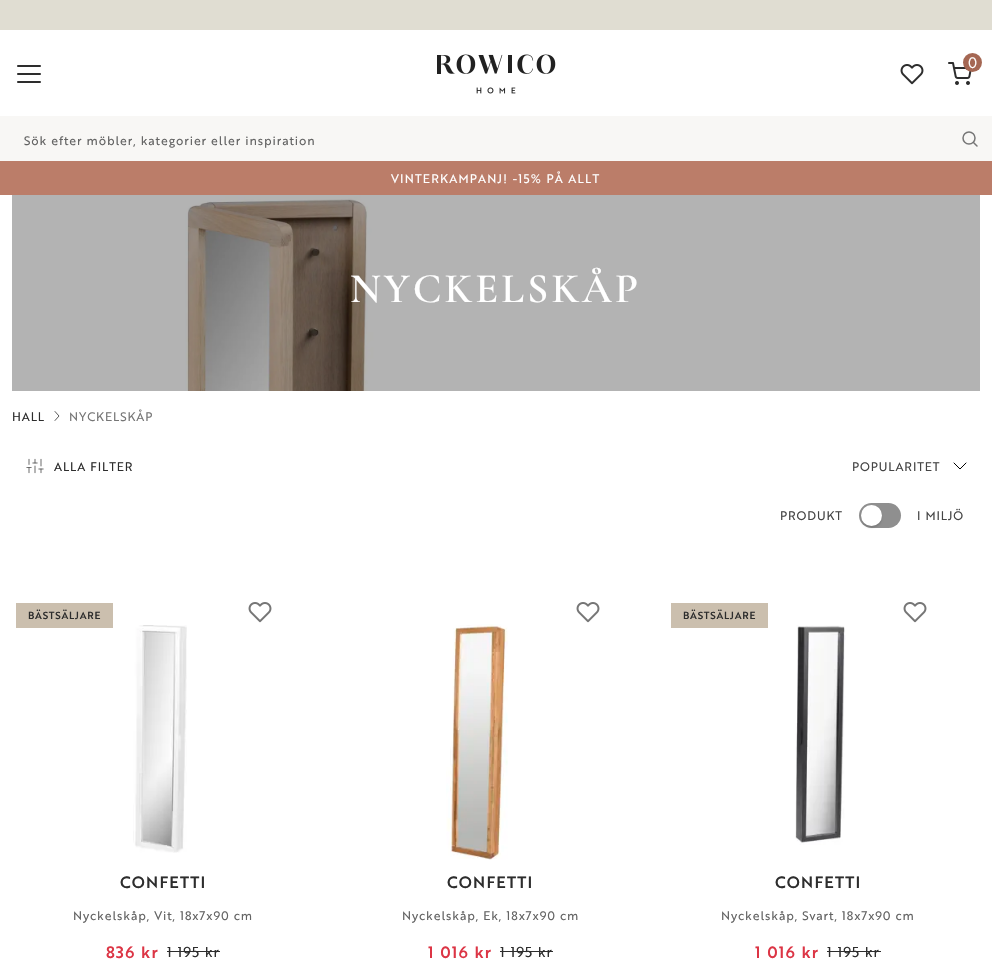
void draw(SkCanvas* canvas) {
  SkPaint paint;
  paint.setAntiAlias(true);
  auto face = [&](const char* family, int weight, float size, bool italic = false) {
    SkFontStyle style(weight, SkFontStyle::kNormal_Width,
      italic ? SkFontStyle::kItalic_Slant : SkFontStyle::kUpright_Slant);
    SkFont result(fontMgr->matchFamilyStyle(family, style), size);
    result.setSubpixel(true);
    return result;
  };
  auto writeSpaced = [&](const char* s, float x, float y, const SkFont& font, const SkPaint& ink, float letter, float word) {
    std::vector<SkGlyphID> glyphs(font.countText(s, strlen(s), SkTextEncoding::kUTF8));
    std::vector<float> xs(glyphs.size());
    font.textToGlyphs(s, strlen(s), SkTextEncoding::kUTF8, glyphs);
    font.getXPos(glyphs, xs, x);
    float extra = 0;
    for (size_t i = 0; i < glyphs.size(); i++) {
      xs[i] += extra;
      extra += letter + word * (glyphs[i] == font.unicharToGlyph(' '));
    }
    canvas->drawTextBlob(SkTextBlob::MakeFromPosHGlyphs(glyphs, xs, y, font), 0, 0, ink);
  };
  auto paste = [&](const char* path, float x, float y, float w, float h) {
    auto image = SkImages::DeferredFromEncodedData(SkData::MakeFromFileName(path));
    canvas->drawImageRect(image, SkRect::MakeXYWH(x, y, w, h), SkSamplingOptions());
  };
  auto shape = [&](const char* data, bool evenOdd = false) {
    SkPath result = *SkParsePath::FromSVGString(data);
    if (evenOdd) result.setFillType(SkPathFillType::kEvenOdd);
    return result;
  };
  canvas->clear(0xffffffff);
  paint.setColor(0xffe0ddd2);
  canvas->drawRect(SkRect::MakeXYWH(0, 0, 992, 30), paint);
  paste("img/1.png", 437, 54, 119, 40);
  paste("img/2.png", 900, 64, 24, 21);
  paste("img/3.png", 948, 62, 24, 23);
  paint.setColor(0xffa56753);
  canvas->drawCircle(972.5f, 62.5f, 9.5f, paint);
  paste("img/4.png", 17, 65, 24, 18);
  paint.setColor(0xfff8f7f5);
  canvas->drawRect(SkRect::MakeXYWH(0, 116, 992, 45), paint);
  paint.setStroke(true);
  paint.setStrokeWidth(1.5f);
  paint.setColor(0xff767676);
  canvas->drawCircle(969, 138, 6, paint);
  paint.setStrokeCap(SkPaint::kRound_Cap);
  paint.setStrokeJoin(SkPaint::kRound_Join);
  canvas->drawPath(shape("M977 146L973.5 142.5"), paint);
  paint.setStroke(false);
  paint.setColor(0xffbb7d69);
  canvas->drawRect(SkRect::MakeXYWH(0, 161, 992, 34), paint);
  paste("img/5.png", 12, 195, 968, 196);
  paint.setStroke(true);
  paint.setStrokeWidth(0.8f);
  paint.setColor(0xff2d2d2d);
  canvas->drawPath(shape("M55 420.5L59 416L55 411.5"), paint);
  paste("img/6.png", 26, 458, 18, 16);
  paint.setStrokeWidth(1);
  paint.setColor(0xff000000);
  canvas->drawPath(shape("M954 463L960 469L966 463"), paint);
  paint.setStroke(false);
  paint.setColor(0xff8f8f8f);
  canvas->drawRoundRect(SkRect::MakeXYWH(859, 503, 42, 25), 12.5f, 12.5f, paint);
  paint.setColor(0x24000000);
  paint.setMaskFilter(SkMaskFilter::MakeBlur(kNormal_SkBlurStyle, 1));
  canvas->drawRoundRect(SkRect::MakeXYWH(861, 507, 21, 21), 10.5f, 10.5f, paint);
  paint.setMaskFilter(nullptr);
  paint.setColor(0xffffffff);
  canvas->drawCircle(871.5f, 515.5f, 10.5f, paint);
  paint.setColor(0xffcbbfae);
  canvas->drawRect(SkRect::MakeXYWH(16, 603, 97, 25), paint);
  paste("img/7.png", 248, 602, 24, 21);
  paste("img/8.png", 133, 625, 54, 228);
  paint.setColor(0xff2d2d2d);
  canvas->drawRect(SkRect::MakeXYWH(167, 951, 53, 1), paint);
  paste("img/7.png", 576, 602, 24, 21);
  paste("img/9.png", 446, 624, 62, 236);
  canvas->drawRect(SkRect::MakeXYWH(500, 951, 53, 1), paint);
  paint.setColor(0xffcbbfae);
  canvas->drawRect(SkRect::MakeXYWH(671, 603, 97, 25), paint);
  paste("img/7.png", 903, 602, 24, 21);
  paste("img/10.png", 795, 625, 51, 220);
  paint.setColor(0xff2d2d2d);
  canvas->drawRect(SkRect::MakeXYWH(827, 951, 54, 1), paint);
  auto f0 = face("Futura PT", 400, 16);
  paint.setColor(0xffffffff);
  canvas->drawString("0", 968, 68, f0, paint);
  auto f1 = face("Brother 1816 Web", 400, 12);
  paint.setColor(0xff646464);
  writeSpaced("Sök efter möbler, kategorier eller inspiration", 24, 145, f1, paint, 0.9f, 0);
  paint.setColor(0xffffffff);
  writeSpaced("VINTERKAMPANJ! -15% PÅ ALLT", 391, 183, f1, paint, 1.2f, 0);
  auto f2 = face("Cormorant Garamond", 600, 42);
  writeSpaced("NYCKELSKÅP", 350, 302, f2, paint, 3.1f, 0);
  paint.setColor(0xff2d2d2d);
  writeSpaced("HALL", 12, 421, f1, paint, 0.9f, 0);
  paint.setColor(0xff767676);
  writeSpaced("NYCKELSKÅP", 69, 421, f1, paint, 0.9f, 0);
  paint.setColor(0xff2d2d2d);
  writeSpaced("ALLA FILTER", 54, 471, f1, paint, 0.9f, 0);
  paint.setColor(0xff454545);
  {
    const struct { const char* s; float x, y; } items[] = {
      {"POPULARITET", 852, 471},
      {"PRODUKT", 780, 520},
      {"I MILJÖ", 917, 520},
    };
    for (auto [s, x, y] : items) {
      writeSpaced(s, x, y, f1, paint, 0.9f, 0);
    }
  }
  auto f3 = face("Brother 1816 Web", 500, 10);
  paint.setColor(0xff2d2d2d);
  writeSpaced("BÄSTSÄLJARE", 28, 619, f3, paint, 0.75f, 0);
  auto f4 = face("Brother 1816 Web", 500, 16);
  writeSpaced("CONFETTI", 120, 888, f4, paint, 1.2f, 0);
  paint.setColor(0xff646464);
  writeSpaced("Nyckelskåp, Vit, 18x7x90 cm", 73, 920, f1, paint, 0.9f, 0);
  paint.setColor(0xffdc3545);
  writeSpaced("836 kr", 106, 958, f4, paint, 1.2f, 0);
  auto f5 = face("Brother 1816 Web", 400, 14);
  paint.setColor(0xff2d2d2d);
  writeSpaced("1 195 kr", 167, 957, f5, paint, 1, 0);
  writeSpaced("CONFETTI", 447, 888, f4, paint, 1.2f, 0);
  paint.setColor(0xff646464);
  writeSpaced("Nyckelskåp, Ek, 18x7x90 cm", 402, 920, f1, paint, 0.9f, 0);
  paint.setColor(0xffdc3545);
  writeSpaced("1 016 kr", 428, 958, f4, paint, 1.2f, 0);
  paint.setColor(0xff2d2d2d);
  writeSpaced("1 195 kr", 500, 957, f5, paint, 1, 0);
  writeSpaced("BÄSTSÄLJARE", 683, 619, f3, paint, 0.75f, 0);
  writeSpaced("CONFETTI", 775, 888, f4, paint, 1.2f, 0);
  paint.setColor(0xff646464);
  writeSpaced("Nyckelskåp, Svart, 18x7x90 cm", 721, 920, f1, paint, 0.9f, 0);
  paint.setColor(0xffdc3545);
  writeSpaced("1 016 kr", 755, 958, f4, paint, 1.2f, 0);
  paint.setColor(0xff2d2d2d);
  writeSpaced("1 195 kr", 827, 957, f5, paint, 1, 0);
}
